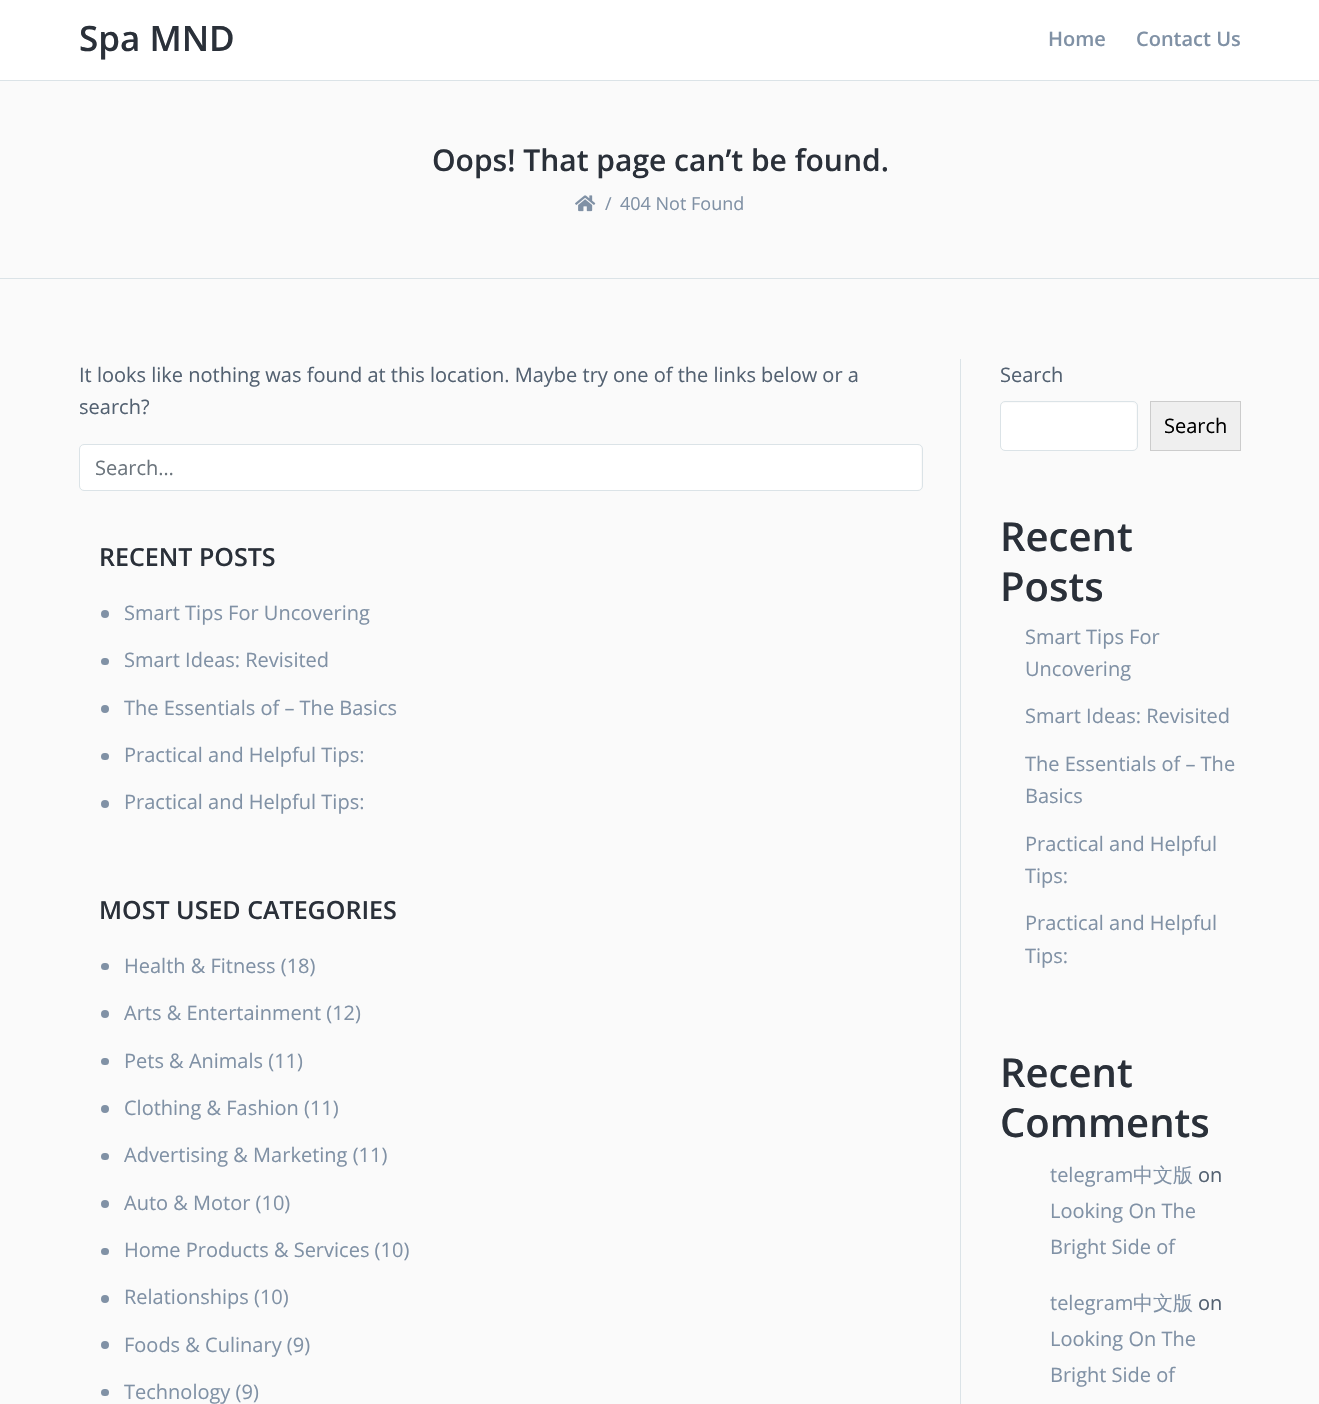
void draw(SkCanvas* canvas) {
  SkPaint paint;
  paint.setAntiAlias(true);
  auto face = [&](const char* family, int weight, float size, bool italic = false) {
    SkFontStyle style(weight, SkFontStyle::kNormal_Width,
      italic ? SkFontStyle::kItalic_Slant : SkFontStyle::kUpright_Slant);
    SkFont result(fontMgr->matchFamilyStyle(family, style), size);
    result.setSubpixel(true);
    return result;
  };
  auto paste = [&](const char* path, float x, float y, float w, float h) {
    auto image = SkImages::DeferredFromEncodedData(SkData::MakeFromFileName(path));
    canvas->drawImageRect(image, SkRect::MakeXYWH(x, y, w, h), SkSamplingOptions());
  };
  canvas->clear(0xfffafafa);
  {
    const struct { float x, y, w, h; SkColor color; } items[] = {
      {0, 0, 1319, 80, 0xffffffff},
      {0, 80, 1319, 1, 0xffdbe3e7},
      {0, 278, 1319, 1, 0xffdbe3e7},
    };
    for (auto [x, y, w, h, color] : items) {
      paint.setColor(color);
      canvas->drawRect(SkRect::MakeXYWH(x, y, w, h), paint);
    }
  }
  paste("img/1.png", 575, 195, 21, 17);
  paint.setColor(0xffffffff);
  canvas->drawRoundRect(SkRect::MakeXYWH(80, 445, 841, 45), 4, 4, paint);
  paint.setStroke(true);
  paint.setStrokeWidth(1);
  paint.setColor(0xffdbe3e7);
  canvas->drawRoundRect(SkRect::MakeXYWH(79.5f, 444.5f, 843, 46), 4.5f, 4.5f, paint);
  paint.setStroke(false);
  paint.setColor(0xff8091a5);
  canvas->drawCircle(105, 614, 4, paint);
  canvas->drawRoundRect(SkRect::MakeXYWH(101, 658, 8, 7), 3.5f, 3.5f, paint);
  canvas->drawCircle(105, 709, 4, paint);
  canvas->drawRoundRect(SkRect::MakeXYWH(101, 753, 8, 7), 3.5f, 3.5f, paint);
  canvas->drawCircle(105, 804, 4, paint);
  canvas->drawRoundRect(SkRect::MakeXYWH(101, 963, 8, 7), 3.5f, 3.5f, paint);
  canvas->drawCircle(105, 1014, 4, paint);
  canvas->drawRoundRect(SkRect::MakeXYWH(101, 1058, 8, 7), 3.5f, 3.5f, paint);
  canvas->drawCircle(105, 1109, 4, paint);
  canvas->drawRoundRect(SkRect::MakeXYWH(101, 1153, 8, 7), 3.5f, 3.5f, paint);
  canvas->drawCircle(105, 1204, 4, paint);
  canvas->drawRoundRect(SkRect::MakeXYWH(101, 1248, 8, 7), 3.5f, 3.5f, paint);
  canvas->drawCircle(105, 1299, 4, paint);
  canvas->drawCircle(105, 1345, 4, paint);
  canvas->drawRoundRect(SkRect::MakeXYWH(101, 1389, 8, 7), 3.5f, 3.5f, paint);
  paint.setColor(0xffdbe3e7);
  canvas->drawRect(SkRect::MakeXYWH(960, 359, 1, 1045), paint);
  paint.setColor(0xffffffff);
  canvas->drawRoundRect(SkRect::MakeXYWH(1001, 403, 135, 47), 4, 4, paint);
  paint.setStroke(true);
  paint.setColor(0xffdbe3e7);
  canvas->drawRoundRect(SkRect::MakeXYWH(1000.5f, 401.5f, 137, 49), 4.5f, 4.5f, paint);
  paint.setStroke(false);
  paint.setColor(0xffefefef);
  canvas->drawRect(SkRect::MakeXYWH(1150.5f, 401.5f, 90, 49), paint);
  paint.setStroke(true);
  paint.setColor(0xffcccccc);
  canvas->drawRect(SkRect::MakeXYWH(1150.5f, 401.5f, 90, 49), paint);
  auto f0 = face("Open Sans", 600, 35);
  paint.setStroke(false);
  paint.setColor(0xff2a3039);
  canvas->drawString("Spa MND", 79, 51, f0, paint);
  auto f1 = face("Open Sans", 600, 20);
  paint.setColor(0xff8091a5);
  canvas->drawString("Home", 1048, 46, f1, paint);
  canvas->drawString("Contact Us", 1136, 46, f1, paint);
  auto f2 = face("Open Sans", 600, 30);
  paint.setColor(0xff2a3039);
  canvas->drawString("Oops! That page can’t be found.", 432, 171, f2, paint);
  auto f3 = face("Open Sans", 400, 18);
  paint.setColor(0xff8091a5);
  canvas->drawString("/", 605, 210, f3, paint);
  canvas->drawString("404 Not Found", 620, 210, f3, paint);
  auto f4 = face("Open Sans", 400, 20);
  paint.setColor(0xff536171);
  canvas->drawString("It looks like nothing was found at this location. Maybe try one of the links below or a", 79, 382, f4, paint);
  canvas->drawString("search?", 79, 414, f4, paint);
  paint.setColor(0xff6c757d);
  canvas->drawString("Search…", 95, 475, f4, paint);
  auto f5 = face("Open Sans", 600, 25);
  paint.setColor(0xff2a3039);
  canvas->drawString("RECENT POSTS", 99, 566, f5, paint);
  paint.setColor(0xff8091a5);
  {
    const struct { const char* s; float x, y; } items[] = {
      {"Smart Tips For Uncovering", 124, 620},
      {"Smart Ideas: Revisited", 124, 667},
      {"The Essentials of – The Basics", 124, 715},
      {"Practical and Helpful Tips:", 124, 762},
      {"Practical and Helpful Tips:", 124, 809},
    };
    for (auto [s, x, y] : items) {
      canvas->drawString(s, x, y, f4, paint);
    }
  }
  paint.setColor(0xff2a3039);
  canvas->drawString("MOST USED CATEGORIES", 99, 919, f5, paint);
  paint.setColor(0xff8091a5);
  {
    const struct { const char* s; float x, y; } items[] = {
      {"Health & Fitness (18)", 124, 973},
      {"Arts & Entertainment (12)", 124, 1020},
      {"Pets & Animals (11)", 124, 1068},
      {"Clothing & Fashion (11)", 124, 1115},
      {"Advertising & Marketing (11)", 124, 1162},
      {"Auto & Motor (10)", 124, 1210},
      {"Home Products & Services (10)", 124, 1257},
      {"Relationships (10)", 124, 1304},
      {"Foods & Culinary (9)", 124, 1352},
      {"Technology (9)", 124, 1399},
    };
    for (auto [s, x, y] : items) {
      canvas->drawString(s, x, y, f4, paint);
    }
  }
  paint.setColor(0xff536171);
  canvas->drawString("Search", 1000, 382, f4, paint);
  paint.setColor(0xff000000);
  canvas->drawString("Search", 1164, 433, f4, paint);
  auto f6 = face("Open Sans", 600, 40);
  paint.setColor(0xff2a3039);
  canvas->drawString("Recent", 1000, 551, f6, paint);
  canvas->drawString("Posts", 1000, 601, f6, paint);
  paint.setColor(0xff8091a5);
  {
    const struct { const char* s; float x, y; } items[] = {
      {"Smart Tips For", 1025, 644},
      {"Uncovering", 1025, 676},
      {"Smart Ideas: Revisited", 1025, 723},
      {"The Essentials of – The", 1025, 771},
      {"Basics", 1025, 803},
      {"Practical and Helpful", 1025, 851},
      {"Tips:", 1025, 883},
      {"Practical and Helpful", 1025, 930},
      {"Tips:", 1025, 963},
    };
    for (auto [s, x, y] : items) {
      canvas->drawString(s, x, y, f4, paint);
    }
  }
  paint.setColor(0xff2a3039);
  canvas->drawString("Recent", 1000, 1087, f6, paint);
  canvas->drawString("Comments", 1000, 1137, f6, paint);
  paint.setColor(0xff8091a5);
  canvas->drawString("telegram", 1050, 1182, f4, paint);
  auto f7 = face("WenQuanYi Zen Hei", 500, 20);
  canvas->drawString("中文版", 1133, 1182, f7, paint);
  paint.setColor(0xff536171);
  canvas->drawString("on", 1198, 1182, f4, paint);
  paint.setColor(0xff8091a5);
  {
    const struct { const char* s; float x, y; } items[] = {
      {"Looking On The", 1050, 1218},
      {"Bright Side of", 1050, 1254},
      {"telegram", 1050, 1310},
    };
    for (auto [s, x, y] : items) {
      canvas->drawString(s, x, y, f4, paint);
    }
  }
  canvas->drawString("中文版", 1133, 1310, f7, paint);
  paint.setColor(0xff536171);
  canvas->drawString("on", 1198, 1310, f4, paint);
  paint.setColor(0xff8091a5);
  canvas->drawString("Looking On The", 1050, 1346, f4, paint);
  canvas->drawString("Bright Side of", 1050, 1382, f4, paint);
}
